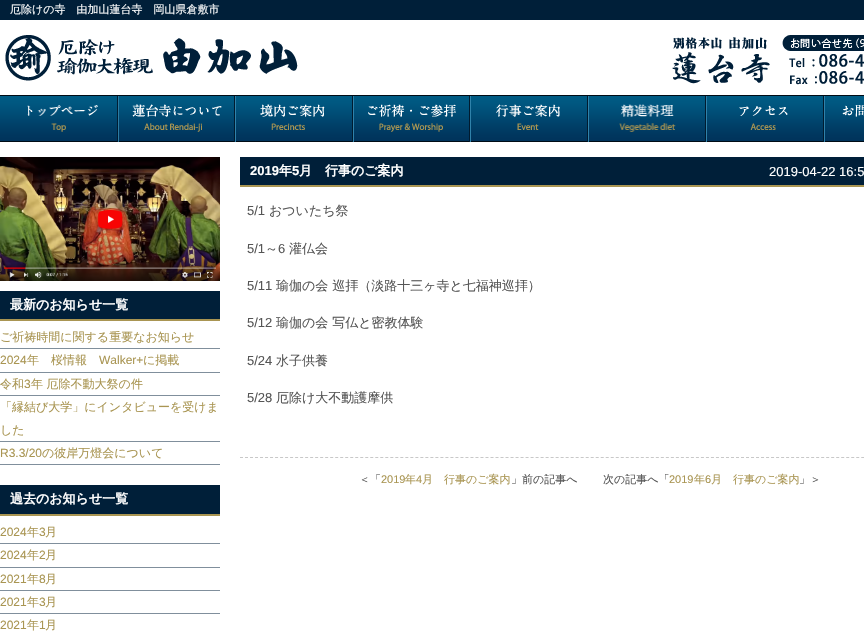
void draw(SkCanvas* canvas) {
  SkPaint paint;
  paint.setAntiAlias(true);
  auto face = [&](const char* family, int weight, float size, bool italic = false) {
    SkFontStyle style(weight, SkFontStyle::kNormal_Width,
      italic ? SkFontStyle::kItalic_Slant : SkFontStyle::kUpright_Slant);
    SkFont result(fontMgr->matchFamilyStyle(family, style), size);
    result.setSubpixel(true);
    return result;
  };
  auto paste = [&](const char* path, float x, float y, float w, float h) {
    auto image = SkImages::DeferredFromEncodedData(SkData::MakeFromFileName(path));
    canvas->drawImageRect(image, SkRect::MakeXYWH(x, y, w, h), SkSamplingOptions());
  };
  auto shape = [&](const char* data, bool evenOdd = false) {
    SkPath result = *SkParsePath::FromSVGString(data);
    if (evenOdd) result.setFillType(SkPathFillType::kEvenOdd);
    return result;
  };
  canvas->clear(0xffffffff);
  paint.setColor(0xff001f39);
  canvas->drawRect(SkRect::MakeXYWH(0, 0, 864, 20), paint);
  paste("img/1.png", 5, 35, 293, 46);
  paste("img/2.png", 672, 35, 192, 50);
  paste("img/3.png", 0, 95, 864, 47);
  paste("img/4.png", 4, 96, 115, 46);
  paste("img/5.png", 119, 96, 117, 46);
  paste("img/6.png", 239, 96, 115, 46);
  paste("img/7.png", 354, 96, 117, 46);
  paste("img/8.png", 474, 96, 115, 46);
  paste("img/9.png", 589, 96, 118, 46);
  paste("img/10.png", 709, 96, 116, 46);
  paste("img/11.png", 829, 96, 35, 46);
  paste("img/12.png", 0, 157, 220, 124);
  {
    const struct { float x, y, w, h; SkColor color; } items[] = {
      {0, 291, 220, 28, 0xff001f39},
      {0, 319, 220, 2, 0xffa99552},
      {0, 348, 220, 1, 0xff808f9c},
      {0, 372, 220, 1, 0xff808f9c},
      {0, 395, 220, 1, 0xff808f9c},
      {0, 441, 220, 1, 0xff808f9c},
      {0, 464, 220, 1, 0xff808f9c},
      {0, 485, 220, 29, 0xff001f39},
      {0, 514, 220, 2, 0xffa99552},
      {0, 543, 220, 1, 0xff808f9c},
      {0, 567, 220, 1, 0xff808f9c},
      {0, 590, 220, 1, 0xff808f9c},
      {0, 613, 220, 1, 0xff808f9c},
      {240, 157, 624, 28, 0xff001f39},
      {240, 185, 624, 2, 0xffa99552},
    };
    for (auto [x, y, w, h, color] : items) {
      paint.setColor(color);
      canvas->drawRect(SkRect::MakeXYWH(x, y, w, h), paint);
    }
  }
  paint.setStroke(true);
  paint.setStrokeWidth(1);
  paint.setColor(0xffc8c8c8);
  paint.setPathEffect(SkDashPathEffect::Make({{3, 2.01f}}, 0));
  canvas->drawPath(shape("M240 457.5H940"), paint);
  paint.setPathEffect(nullptr);
  auto f0 = face("WenQuanYi Zen Hei", 500, 11);
  paint.setStroke(false);
  paint.setColor(0xffffffff);
  canvas->drawString("厄除けの寺　由加山蓮台寺　岡山県倉敷市", 10, 13, f0, paint);
  auto f1 = face("WenQuanYi Zen Hei", 700, 13);
  canvas->drawString("最新のお知らせ一覧", 10, 309, f1, paint);
  auto f2 = face("WenQuanYi Zen Hei", 500, 12);
  paint.setColor(0xffa99552);
  canvas->drawString("ご祈祷時間に関する重要なお知らせ", 0, 341, f2, paint);
  auto f3 = face("Liberation Sans", 400, 12);
  canvas->drawString("2024", 0, 364, f3, paint);
  canvas->drawString("年　桜情報", 27, 364, f2, paint);
  canvas->drawString("Walker+", 99, 364, f3, paint);
  canvas->drawString("に掲載", 143, 364, f2, paint);
  canvas->drawString("令和", 0, 388, f2, paint);
  canvas->drawString("3", 24, 388, f3, paint);
  {
    const struct { const char* s; float x, y; } items[] = {
      {"年 厄除不動大祭の件", 31, 388},
      {"「縁結び大学」にインタビューを受けま", 0, 411},
      {"した", 0, 434},
    };
    for (auto [s, x, y] : items) {
      canvas->drawString(s, x, y, f2, paint);
    }
  }
  canvas->drawString("R3.3/20", 0, 457, f3, paint);
  canvas->drawString("の彼岸万燈会について", 42, 457, f2, paint);
  paint.setColor(0xffffffff);
  canvas->drawString("過去のお知らせ一覧", 10, 503, f1, paint);
  paint.setColor(0xffa99552);
  canvas->drawString("2024", 0, 536, f3, paint);
  canvas->drawString("年", 27, 536, f2, paint);
  canvas->drawString("3", 39, 536, f3, paint);
  canvas->drawString("月", 45, 536, f2, paint);
  canvas->drawString("2024", 0, 559, f3, paint);
  canvas->drawString("年", 27, 559, f2, paint);
  canvas->drawString("2", 39, 559, f3, paint);
  canvas->drawString("月", 45, 559, f2, paint);
  canvas->drawString("2021", 0, 583, f3, paint);
  canvas->drawString("年", 27, 583, f2, paint);
  canvas->drawString("8", 39, 583, f3, paint);
  canvas->drawString("月", 45, 583, f2, paint);
  canvas->drawString("2021", 0, 606, f3, paint);
  canvas->drawString("年", 27, 606, f2, paint);
  canvas->drawString("3", 39, 606, f3, paint);
  canvas->drawString("月", 45, 606, f2, paint);
  canvas->drawString("2021", 0, 629, f3, paint);
  canvas->drawString("年", 27, 629, f2, paint);
  canvas->drawString("1", 39, 629, f3, paint);
  canvas->drawString("月", 45, 629, f2, paint);
  auto f4 = face("Liberation Sans", 700, 13);
  paint.setColor(0xffffffff);
  canvas->drawString("2019", 250, 175, f4, paint);
  canvas->drawString("年", 279, 175, f1, paint);
  canvas->drawString("5", 292, 175, f4, paint);
  canvas->drawString("月　行事のご案内", 299, 175, f1, paint);
  auto f5 = face("Liberation Sans", 400, 13);
  canvas->drawString("2019-04-22 16:5", 769, 176, f5, paint);
  paint.setColor(0xff555555);
  canvas->drawString("5/1", 247, 215, f5, paint);
  auto f6 = face("WenQuanYi Zen Hei", 500, 13);
  canvas->drawString("おついたち祭", 269, 215, f6, paint);
  canvas->drawString("5/1", 247, 253, f5, paint);
  canvas->drawString("～", 265, 253, f6, paint);
  canvas->drawString("6", 278, 253, f5, paint);
  canvas->drawString("灌仏会", 289, 253, f6, paint);
  canvas->drawString("5/11", 247, 290, f5, paint);
  canvas->drawString("瑜伽の会 巡拝（淡路十三ヶ寺と七福神巡拝）", 276, 290, f6, paint);
  canvas->drawString("5/12", 247, 327, f5, paint);
  canvas->drawString("瑜伽の会 写仏と密教体験", 276, 327, f6, paint);
  canvas->drawString("5/24", 247, 365, f5, paint);
  canvas->drawString("水子供養", 276, 365, f6, paint);
  canvas->drawString("5/28", 247, 402, f5, paint);
  canvas->drawString("厄除け大不動護摩供", 276, 402, f6, paint);
  canvas->drawString("＜「", 359, 483, f0, paint);
  auto f7 = face("Liberation Sans", 400, 11);
  paint.setColor(0xffa99552);
  canvas->drawString("2019", 381, 483, f7, paint);
  canvas->drawString("年", 405, 483, f0, paint);
  canvas->drawString("4", 416, 483, f7, paint);
  canvas->drawString("月　行事のご案内", 422, 483, f0, paint);
  paint.setColor(0xff555555);
  canvas->drawString("」前の記事へ", 511, 483, f0, paint);
  canvas->drawString("次の記事へ「", 603, 483, f0, paint);
  paint.setColor(0xffa99552);
  canvas->drawString("2019", 669, 483, f7, paint);
  canvas->drawString("年", 694, 483, f0, paint);
  canvas->drawString("6", 705, 483, f7, paint);
  canvas->drawString("月　行事のご案内", 711, 483, f0, paint);
  paint.setColor(0xff555555);
  canvas->drawString("」＞", 799, 483, f0, paint);
}
